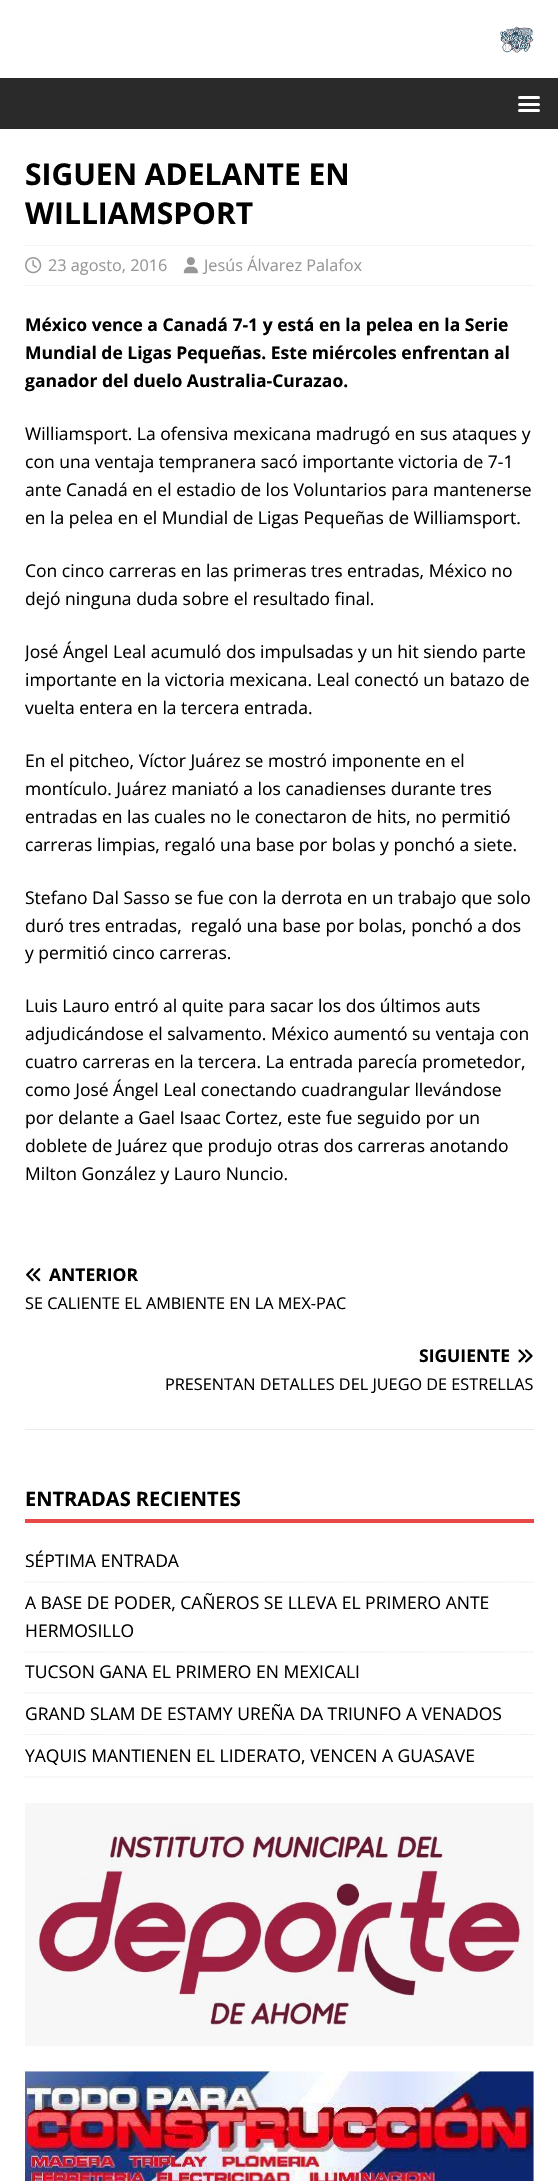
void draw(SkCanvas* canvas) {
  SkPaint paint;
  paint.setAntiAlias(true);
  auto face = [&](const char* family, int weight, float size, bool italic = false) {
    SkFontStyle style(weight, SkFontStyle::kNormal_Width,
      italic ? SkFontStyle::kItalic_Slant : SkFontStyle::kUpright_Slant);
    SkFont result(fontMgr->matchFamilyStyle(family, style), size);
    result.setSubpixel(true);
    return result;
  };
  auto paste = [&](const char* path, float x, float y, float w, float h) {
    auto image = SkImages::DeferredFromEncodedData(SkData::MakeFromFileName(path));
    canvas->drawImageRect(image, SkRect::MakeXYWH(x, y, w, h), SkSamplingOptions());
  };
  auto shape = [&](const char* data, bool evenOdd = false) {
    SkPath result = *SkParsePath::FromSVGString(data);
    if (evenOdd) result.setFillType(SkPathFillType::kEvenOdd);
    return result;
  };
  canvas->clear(0xffffffff);
  paste("img/1.png", 500, 26, 34, 27);
  paint.setColor(0xff2a2a2a);
  canvas->drawRect(SkRect::MakeXYWH(0, 78, 558, 51), paint);
  paint.setColor(0xffffffff);
  canvas->drawRoundRect(SkRect::MakeXYWH(518, 96, 22, 3), 1.5f, 1.5f, paint);
  canvas->drawRoundRect(SkRect::MakeXYWH(518, 103, 22, 3), 1.5f, 1.5f, paint);
  canvas->drawRoundRect(SkRect::MakeXYWH(518, 109, 22, 3), 1.5f, 1.5f, paint);
  paint.setStroke(true);
  paint.setStrokeWidth(1.2f);
  paint.setColor(0xffebebeb);
  paint.setPathEffect(SkDashPathEffect::Make({{1.25f, 1.25f}}, 0));
  canvas->drawPath(shape("M25 245.5H534"), paint);
  paint.setPathEffect(nullptr);
  paint.setPathEffect(SkDashPathEffect::Make({{1.25f, 1.25f}}, 0));
  canvas->drawPath(shape("M25 285.5H534"), paint);
  paint.setPathEffect(nullptr);
  paste("img/2.png", 25, 257, 17, 17);
  paste("img/3.png", 183, 257, 15, 17);
  paint.setStroke(false);
  canvas->drawRect(SkRect::MakeXYWH(25, 1429, 509, 1), paint);
  paste("img/4.png", 26, 1268, 15, 14);
  paste("img/5.png", 518, 1349, 15, 14);
  paint.setColor(0xffe64946);
  canvas->drawRect(SkRect::MakeXYWH(25, 1519, 509, 4), paint);
  paint.setStroke(true);
  paint.setColor(0xffe5e5e5);
  paint.setPathEffect(SkDashPathEffect::Make({{1.25f, 1.25f}}, 0));
  canvas->drawPath(shape("M25 1582H534"), paint);
  paint.setPathEffect(nullptr);
  paint.setPathEffect(SkDashPathEffect::Make({{1.25f, 1.25f}}, 0));
  canvas->drawPath(shape("M25 1652H534"), paint);
  paint.setPathEffect(nullptr);
  paint.setPathEffect(SkDashPathEffect::Make({{1.25f, 1.25f}}, 0));
  canvas->drawPath(shape("M25 1693H534"), paint);
  paint.setPathEffect(nullptr);
  paint.setPathEffect(SkDashPathEffect::Make({{1.25f, 1.25f}}, 0));
  canvas->drawPath(shape("M25 1734.5H534"), paint);
  paint.setPathEffect(nullptr);
  paint.setPathEffect(SkDashPathEffect::Make({{1.25f, 1.25f}}, 0));
  canvas->drawPath(shape("M25 1777H534"), paint);
  paint.setPathEffect(nullptr);
  paste("img/6.png", 25, 1803, 509, 243);
  paste("img/7.png", 25, 2071, 509, 110);
  auto f0 = face("Open Sans", 700, 30);
  paint.setStroke(false);
  paint.setColor(0xff000000);
  canvas->drawString("SIGUEN ADELANTE EN", 25, 185, f0, paint);
  canvas->drawString("WILLIAMSPORT", 25, 224, f0, paint);
  auto f1 = face("Open Sans", 400, 16.25f);
  paint.setColor(0xff979797);
  canvas->drawString("23 agosto, 2016", 48, 271, f1, paint);
  canvas->drawString("Jesús Álvarez Palafox", 204, 271, f1, paint);
  auto f2 = face("Open Sans", 700, 17.5f);
  paint.setColor(0xff000000);
  {
    const struct { const char* s; float x, y; } items[] = {
      {"México vence a Canadá 7-1 y está en la pelea en la Serie", 25, 331},
      {"Mundial de Ligas Pequeñas. Este miércoles enfrentan al", 25, 359},
      {"ganador del duelo Australia-Curazao.", 25, 387},
    };
    for (auto [s, x, y] : items) {
      canvas->drawString(s, x, y, f2, paint);
    }
  }
  auto f3 = face("Open Sans", 400, 17.5f);
  {
    const struct { const char* s; float x, y; } items[] = {
      {"Williamsport. La ofensiva mexicana madrugó en sus ataques y", 25, 440},
      {"con una ventaja tempranera sacó importante victoria de 7-1", 25, 468},
      {"ante Canadá en el estadio de los Voluntarios para mantenerse", 25, 496},
      {"en la pelea en el Mundial de Ligas Pequeñas de Williamsport.", 25, 524},
      {"Con cinco carreras en las primeras tres entradas, México no", 25, 577},
      {"dejó ninguna duda sobre el resultado final.", 25, 605},
    };
    for (auto [s, x, y] : items) {
      canvas->drawString(s, x, y, f3, paint);
    }
  }
  canvas->save();
  canvas->clipRect(SkRect::MakeXYWH(25, 154, 509, 1307));
  canvas->drawString("José Ángel Leal acumuló dos impulsadas y un hit siendo parte", 25, 658, f3, paint);
  canvas->restore();
  {
    const struct { const char* s; float x, y; } items[] = {
      {"importante en la victoria mexicana. Leal conectó un batazo de", 25, 686},
      {"vuelta entera en la tercera entrada.", 25, 714},
      {"En el pitcheo, Víctor Juárez se mostró imponente en el", 25, 767},
      {"montículo. Juárez maniató a los canadienses durante tres", 25, 795},
      {"entradas en las cuales no le conectaron de hits, no permitió", 25, 823},
      {"carreras limpias, regaló una base por bolas y ponchó a siete.", 25, 851},
      {"Stefano Dal Sasso se fue con la derrota en un trabajo que solo", 25, 904},
      {"duró tres entradas,  regaló una base por bolas, ponchó a dos", 25, 932},
      {"y permitió cinco carreras.", 25, 959},
      {"Luis Lauro entró al quite para sacar los dos últimos auts", 25, 1012},
      {"adjudicándose el salvamento. México aumentó su ventaja con", 25, 1040},
      {"cuatro carreras en la tercera. La entrada parecía prometedor,", 25, 1068},
      {"como José Ángel Leal conectando cuadrangular llevándose", 25, 1096},
      {"por delante a Gael Isaac Cortez, este fue seguido por un", 25, 1124},
      {"doblete de Juárez que produjo otras dos carreras anotando", 25, 1152},
      {"Milton González y Lauro Nuncio.", 25, 1180},
    };
    for (auto [s, x, y] : items) {
      canvas->drawString(s, x, y, f3, paint);
    }
  }
  canvas->drawString("ANTERIOR", 49, 1281, f2, paint);
  canvas->drawString("SE CALIENTE EL AMBIENTE EN LA MEX-PAC", 25, 1309, f1, paint);
  canvas->drawString("SIGUIENTE", 419, 1362, f2, paint);
  canvas->drawString("PRESENTAN DETALLES DEL JUEGO DE ESTRELLAS", 165, 1390, f1, paint);
  auto f4 = face("Open Sans", 700, 20);
  canvas->drawString("ENTRADAS RECIENTES", 25, 1506, f4, paint);
  {
    const struct { const char* s; float x, y; } items[] = {
      {"SÉPTIMA ENTRADA", 25, 1567},
      {"A BASE DE PODER, CAÑEROS SE LLEVA EL PRIMERO ANTE", 25, 1609},
      {"HERMOSILLO", 25, 1637},
      {"TUCSON GANA EL PRIMERO EN MEXICALI", 25, 1678},
      {"GRAND SLAM DE ESTAMY UREÑA DA TRIUNFO A VENADOS", 25, 1720},
      {"YAQUIS MANTIENEN EL LIDERATO, VENCEN A GUASAVE", 25, 1762},
    };
    for (auto [s, x, y] : items) {
      canvas->drawString(s, x, y, f3, paint);
    }
  }
}
